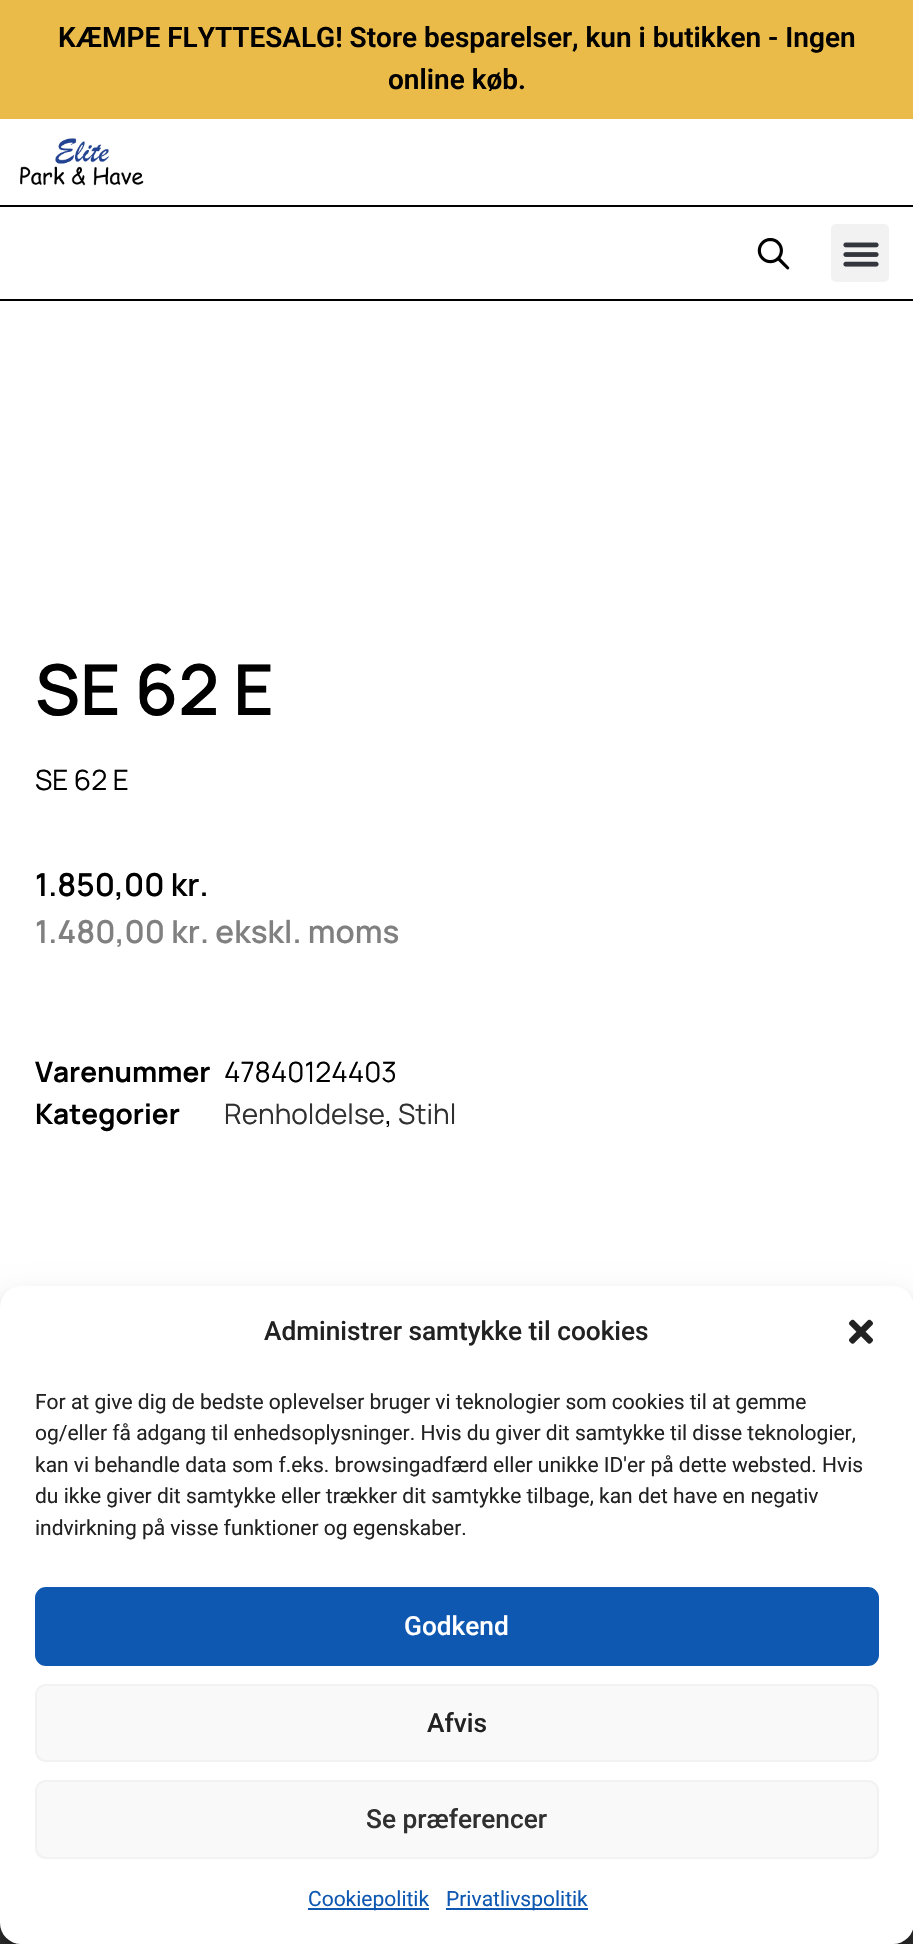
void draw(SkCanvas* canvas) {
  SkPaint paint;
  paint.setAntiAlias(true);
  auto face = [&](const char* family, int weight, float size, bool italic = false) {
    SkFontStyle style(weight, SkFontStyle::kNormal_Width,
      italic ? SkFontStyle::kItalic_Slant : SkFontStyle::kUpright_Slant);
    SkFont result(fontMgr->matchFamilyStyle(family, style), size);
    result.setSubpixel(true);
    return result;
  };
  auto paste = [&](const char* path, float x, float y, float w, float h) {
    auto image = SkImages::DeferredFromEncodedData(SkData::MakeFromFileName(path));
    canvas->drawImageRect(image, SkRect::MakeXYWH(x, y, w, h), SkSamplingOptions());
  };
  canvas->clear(0xffffffff);
  paint.setColor(0xffebbb49);
  canvas->drawRect(SkRect::MakeXYWH(0, 0, 913, 119), paint);
  paint.setColor(0xff000000);
  canvas->drawRect(SkRect::MakeXYWH(0, 205, 913, 2), paint);
  paste("img/1.png", 20, 138, 124, 48);
  canvas->drawRect(SkRect::MakeXYWH(0, 299, 913, 2), paint);
  paste("img/2.png", 757, 238, 33, 32);
  paint.setColor(0xfff2f2f2);
  canvas->drawRoundRect(SkRect::MakeXYWH(831, 224, 58, 58), 5, 5, paint);
  paste("img/3.png", 843, 242, 36, 25);
  paint.setColor(0xff303030);
  canvas->drawRect(SkRect::MakeXYWH(0, 1923, 913, 21), paint);
  paint.setColor(0x3b000000);
  paint.setMaskFilter(SkMaskFilter::MakeBlur(kNormal_SkBlurStyle, 5));
  canvas->drawRoundRect(SkRect::MakeXYWH(0, 1297, 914, 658), 21, 21, paint);
  paint.setMaskFilter(nullptr);
  paint.setColor(0x30000000);
  paint.setMaskFilter(SkMaskFilter::MakeBlur(kNormal_SkBlurStyle, 17.5f));
  canvas->drawRoundRect(SkRect::MakeXYWH(0, 1304, 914, 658), 21, 21, paint);
  paint.setMaskFilter(nullptr);
  paint.setColor(0xffffffff);
  canvas->drawRoundRect(SkRect::MakeXYWH(0, 1286, 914, 658), 21, 21, paint);
  paste("img/4.png", 849, 1319, 24, 25);
  paint.setColor(0xff0e58b1);
  canvas->drawRoundRect(SkRect::MakeXYWH(36, 1588, 842, 77), 10, 10, paint);
  paint.setStroke(true);
  paint.setStrokeWidth(2);
  canvas->drawRoundRect(SkRect::MakeXYWH(36, 1588, 842, 77), 10, 10, paint);
  paint.setStroke(false);
  paint.setColor(0xfff9f9f9);
  canvas->drawRoundRect(SkRect::MakeXYWH(36, 1685, 842, 76), 10, 10, paint);
  paint.setStroke(true);
  paint.setColor(0xfff2f2f2);
  canvas->drawRoundRect(SkRect::MakeXYWH(36, 1685, 842, 76), 10, 10, paint);
  paint.setStroke(false);
  paint.setColor(0xfff9f9f9);
  canvas->drawRoundRect(SkRect::MakeXYWH(36, 1781, 842, 77), 10, 10, paint);
  paint.setStroke(true);
  paint.setColor(0xfff2f2f2);
  canvas->drawRoundRect(SkRect::MakeXYWH(36, 1781, 842, 77), 10, 10, paint);
  paint.setStroke(false);
  paint.setColor(0xff0e58b1);
  canvas->drawRect(SkRect::MakeXYWH(308, 1908, 121, 2), paint);
  canvas->drawRect(SkRect::MakeXYWH(446, 1908, 142, 2), paint);
  auto f0 = face("Roboto", 600, 28);
  paint.setColor(0xff000000);
  canvas->drawString("KÆMPE FLYTTESALG! Store besparelser, kun i butikken - Ingen", 58, 47, f0, paint);
  canvas->drawString("online køb.", 388, 89, f0, paint);
  auto f1 = face("Manrope", 600, 70);
  canvas->drawString("SE 62 E", 35, 715, f1, paint);
  auto f2 = face("Manrope", 400, 28);
  canvas->drawString("SE 62 E", 35, 790, f2, paint);
  auto f3 = face("Manrope", 600, 31.5f);
  canvas->drawString("1.850,00 kr.", 35, 896, f3, paint);
  paint.setColor(0xff808080);
  canvas->drawString("1.480,00 kr. ekskl. moms", 35, 943, f3, paint);
  auto f4 = face("Manrope", 700, 28);
  paint.setColor(0xff000000);
  canvas->drawString("Varenummer", 35, 1082, f4, paint);
  canvas->drawString("47840124403", 224, 1082, f2, paint);
  canvas->drawString("Kategorier", 35, 1124, f4, paint);
  paint.setColor(0xff303030);
  canvas->drawString("Renholdelse", 224, 1124, f2, paint);
  paint.setColor(0xff000000);
  canvas->drawString(",", 385, 1124, f2, paint);
  paint.setColor(0xff303030);
  canvas->drawString("Stihl", 398, 1124, f2, paint);
  auto f5 = face("Roboto", 500, 26.25f);
  paint.setColor(0xff222222);
  canvas->drawString("Administrer samtykke til cookies", 264, 1340, f5, paint);
  auto f6 = face("Roboto", 400, 21);
  {
    const struct { const char* s; float x, y; } items[] = {
      {"For at give dig de bedste oplevelser bruger vi teknologier som cookies til at gemme", 35, 1409},
      {"og/eller få adgang til enhedsoplysninger. Hvis du giver dit samtykke til disse teknologier,", 35, 1440},
      {"kan vi behandle data som f.eks. browsingadfærd eller unikke ID'er på dette websted. Hvis", 35, 1472},
      {"du ikke giver dit samtykke eller trækker dit samtykke tilbage, kan det have en negativ", 35, 1503},
      {"indvirkning på visse funktioner og egenskaber.", 35, 1535},
    };
    for (auto [s, x, y] : items) {
      canvas->drawString(s, x, y, f6, paint);
    }
  }
  paint.setColor(0xffffffff);
  canvas->drawString("Godkend", 404, 1635, f5, paint);
  paint.setColor(0xff222222);
  canvas->drawString("Afvis", 427, 1732, f5, paint);
  paint.setColor(0xff303030);
  canvas->drawString("Se præferencer", 366, 1828, f5, paint);
  paint.setColor(0xff0e58b1);
  canvas->drawString("Cookiepolitik", 308, 1906, f6, paint);
  canvas->drawString("Privatlivspolitik", 446, 1906, f6, paint);
}
